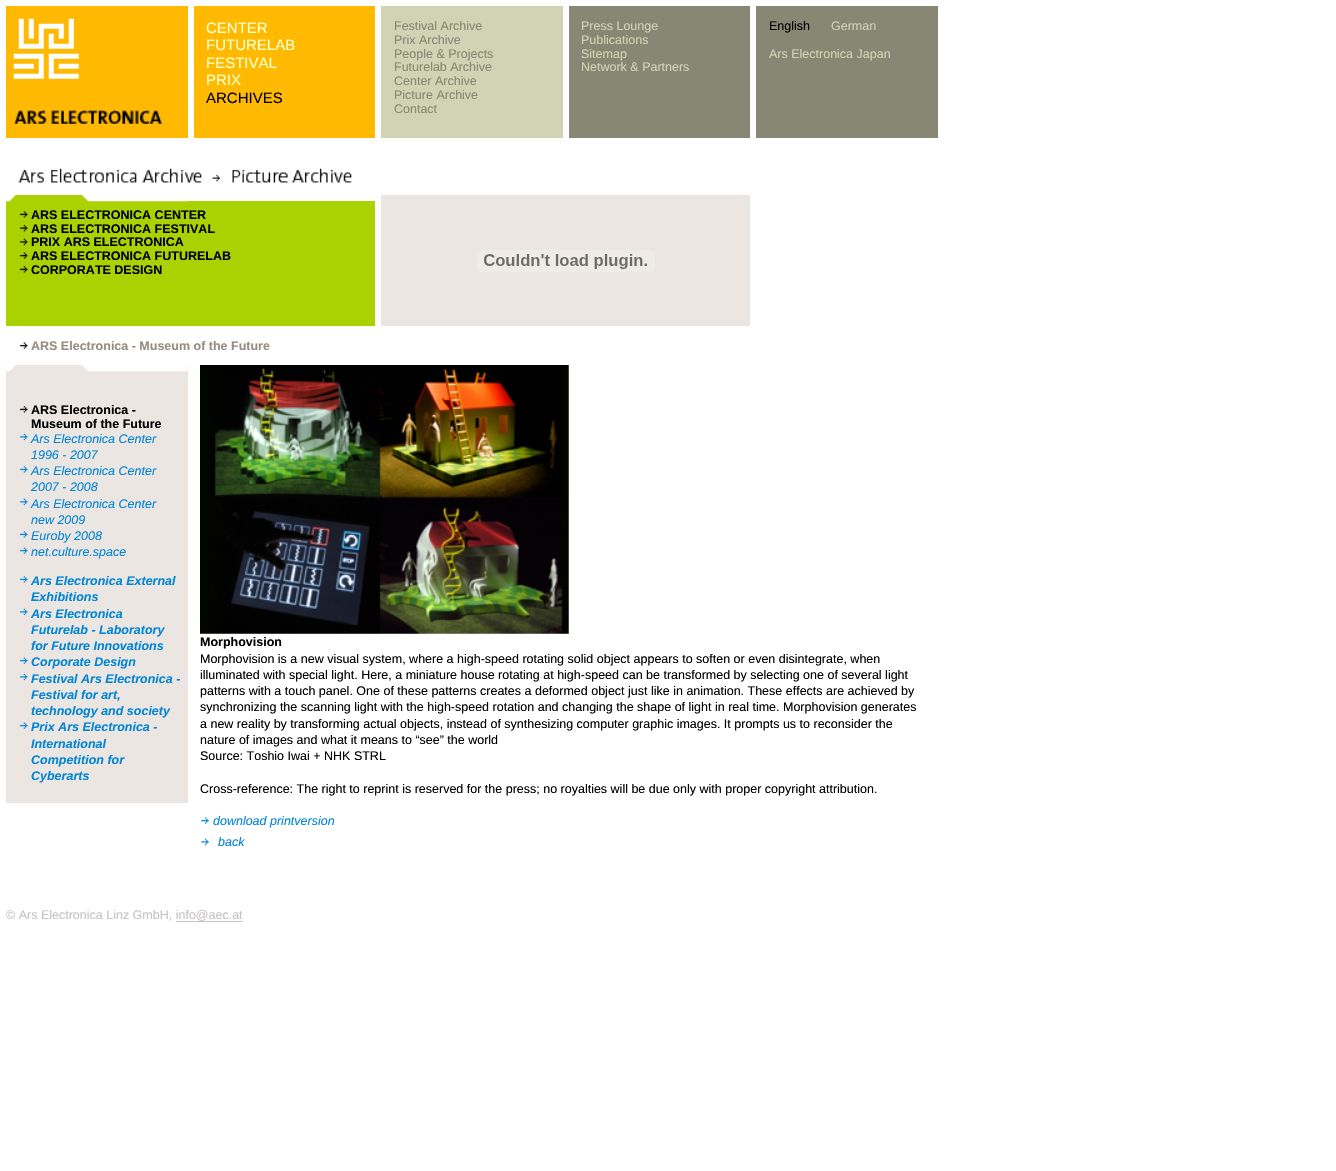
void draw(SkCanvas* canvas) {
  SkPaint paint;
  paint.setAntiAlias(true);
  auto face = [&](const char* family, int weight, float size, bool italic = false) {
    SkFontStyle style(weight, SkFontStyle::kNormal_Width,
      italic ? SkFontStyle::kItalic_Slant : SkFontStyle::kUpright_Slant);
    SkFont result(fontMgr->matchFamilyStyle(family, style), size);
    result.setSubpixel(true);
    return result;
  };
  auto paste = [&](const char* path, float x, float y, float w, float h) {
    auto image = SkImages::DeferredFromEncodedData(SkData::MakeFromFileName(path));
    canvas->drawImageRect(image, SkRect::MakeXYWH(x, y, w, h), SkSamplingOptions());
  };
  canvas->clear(0xffffffff);
  paint.setColor(0xffffb900);
  canvas->drawRect(SkRect::MakeXYWH(6, 6, 182, 132), paint);
  paste("img/1.png", 13, 18, 66, 61);
  paste("img/2.png", 14, 110, 149, 14);
  {
    const struct { float x, y, w, h; SkColor color; } items[] = {
      {194, 6, 181, 132, 0xffffb900},
      {381, 6, 182, 132, 0xffd2d2b4},
      {569, 6, 181, 132, 0xff878773},
      {756, 6, 182, 132, 0xff878773},
    };
    for (auto [x, y, w, h, color] : items) {
      paint.setColor(color);
      canvas->drawRect(SkRect::MakeXYWH(x, y, w, h), paint);
    }
  }
  paste("img/3.png", 18, 168, 334, 15);
  paint.setColor(0xffaad200);
  canvas->drawRect(SkRect::MakeXYWH(6, 201, 369, 125), paint);
  paste("img/4.png", 6, 195, 182, 7);
  paste("img/5.png", 19, 211, 9, 7);
  paste("img/6.png", 19, 224, 9, 8);
  paste("img/7.png", 19, 238, 9, 8);
  paste("img/8.png", 19, 252, 9, 7);
  paste("img/5.png", 19, 266, 9, 7);
  paint.setColor(0xffebe6e1);
  canvas->drawRect(SkRect::MakeXYWH(381, 195, 369, 131), paint);
  paste("img/9.png", 476, 250, 179, 22);
  paste("img/10.png", 19, 342, 9, 7);
  canvas->drawRect(SkRect::MakeXYWH(6, 365, 182, 438), paint);
  paste("img/11.png", 6, 365, 182, 7);
  paste("img/12.png", 19, 406, 9, 7);
  paste("img/13.png", 19, 433, 9, 8);
  paste("img/14.png", 19, 466, 9, 7);
  paste("img/13.png", 19, 498, 9, 8);
  paste("img/14.png", 19, 531, 9, 7);
  paste("img/15.png", 19, 547, 9, 7);
  paste("img/14.png", 19, 576, 9, 7);
  paste("img/13.png", 19, 608, 9, 8);
  paste("img/15.png", 19, 657, 9, 7);
  paste("img/13.png", 19, 673, 9, 8);
  paste("img/15.png", 19, 722, 9, 7);
  paste("img/16.png", 200, 365, 369, 269);
  paste("img/17.png", 201, 817, 8, 7);
  paste("img/18.png", 201, 838, 8, 8);
  paint.setColor(0xffc8c3c3);
  canvas->drawRect(SkRect::MakeXYWH(176, 921, 67, 1), paint);
  auto f0 = face("Liberation Sans", 400, 15);
  paint.setColor(0xffffffcc);
  {
    const struct { const char* s; float x, y; } items[] = {
      {"CENTER", 206, 33},
      {"FUTURELAB", 206, 50},
      {"FESTIVAL", 206, 68},
      {"PRIX", 206, 85},
    };
    for (auto [s, x, y] : items) {
      canvas->drawString(s, x, y, f0, paint);
    }
  }
  paint.setColor(0xff000000);
  canvas->drawString("ARCHIVES", 206, 103, f0, paint);
  auto f1 = face("Liberation Sans", 400, 12.5f);
  paint.setColor(0xff878773);
  {
    const struct { const char* s; float x, y; } items[] = {
      {"Festival Archive", 394, 30},
      {"Prix Archive", 394, 44},
      {"People & Projects", 394, 58},
      {"Futurelab Archive", 394, 71},
      {"Center Archive", 394, 85},
      {"Picture Archive", 394, 99},
      {"Contact", 394, 113},
    };
    for (auto [s, x, y] : items) {
      canvas->drawString(s, x, y, f1, paint);
    }
  }
  paint.setColor(0xffd2d2b4);
  {
    const struct { const char* s; float x, y; } items[] = {
      {"Press Lounge", 581, 30},
      {"Publications", 581, 44},
      {"Sitemap", 581, 58},
      {"Network & Partners", 581, 71},
    };
    for (auto [s, x, y] : items) {
      canvas->drawString(s, x, y, f1, paint);
    }
  }
  paint.setColor(0xff000000);
  canvas->drawString("English", 769, 30, f1, paint);
  paint.setColor(0xffd2d2b4);
  canvas->drawString("German", 831, 30, f1, paint);
  canvas->drawString("Ars Electronica Japan", 769, 58, f1, paint);
  auto f2 = face("Liberation Sans", 700, 12.5f);
  paint.setColor(0xff000000);
  {
    const struct { const char* s; float x, y; } items[] = {
      {"ARS ELECTRONICA CENTER", 31, 219},
      {"ARS ELECTRONICA FESTIVAL", 31, 233},
      {"PRIX ARS ELECTRONICA", 31, 246},
      {"ARS ELECTRONICA FUTURELAB", 31, 260},
      {"CORPORATE DESIGN", 31, 274},
    };
    for (auto [s, x, y] : items) {
      canvas->drawString(s, x, y, f2, paint);
    }
  }
  paint.setColor(0xff968c82);
  canvas->drawString("ARS Electronica - Museum of the Future", 31, 350, f2, paint);
  paint.setColor(0xff000000);
  canvas->drawString("ARS Electronica -", 31, 414, f2, paint);
  canvas->drawString("Museum of the Future", 31, 428, f2, paint);
  auto f3 = face("Liberation Sans", 400, 12.5f, true);
  paint.setColor(0xff0085d7);
  {
    const struct { const char* s; float x, y; } items[] = {
      {"Ars Electronica Center", 31, 443},
      {"1996 - 2007", 31, 459},
      {"Ars Electronica Center", 31, 475},
      {"2007 - 2008", 31, 491},
      {"Ars Electronica Center", 31, 508},
      {"new 2009", 31, 524},
      {"Euroby 2008", 31, 540},
      {"net.culture.space", 31, 556},
    };
    for (auto [s, x, y] : items) {
      canvas->drawString(s, x, y, f3, paint);
    }
  }
  auto f4 = face("Liberation Sans", 700, 12.5f, true);
  {
    const struct { const char* s; float x, y; } items[] = {
      {"Ars Electronica External", 31, 585},
      {"Exhibitions", 31, 601},
      {"Ars Electronica", 31, 618},
      {"Futurelab - Laboratory", 31, 634},
      {"for Future Innovations", 31, 650},
      {"Corporate Design", 31, 666},
      {"Festival Ars Electronica -", 31, 683},
      {"Festival for art,", 31, 699},
      {"technology and society", 31, 715},
      {"Prix Ars Electronica -", 31, 731},
      {"International", 31, 748},
      {"Competition for", 31, 764},
      {"Cyberarts", 31, 780},
    };
    for (auto [s, x, y] : items) {
      canvas->drawString(s, x, y, f4, paint);
    }
  }
  paint.setColor(0xff000000);
  canvas->drawString("Morphovision", 200, 646, f2, paint);
  {
    const struct { const char* s; float x, y; } items[] = {
      {"Morphovision is a new visual system, where a high-speed rotating solid object appears to soften or even disintegrate, when", 200, 663},
      {"illuminated with special light. Here, a miniature house rotating at high-speed can be transformed by selecting one of several light", 200, 679},
      {"patterns with a touch panel. One of these patterns creates a deformed object just like in animation. These effects are achieved by", 200, 695},
      {"synchronizing the scanning light with the high-speed rotation and changing the shape of light in real time. Morphovision generates", 200, 711},
      {"a new reality by transforming actual objects, instead of synthesizing computer graphic images. It prompts us to reconsider the", 200, 728},
      {"nature of images and what it means to “see” the world", 200, 744},
      {"Source: Toshio Iwai + NHK STRL", 200, 760},
      {"Cross-reference: The right to reprint is reserved for the press; no royalties will be due only with proper copyright attribution.", 200, 793},
    };
    for (auto [s, x, y] : items) {
      canvas->drawString(s, x, y, f1, paint);
    }
  }
  paint.setColor(0xff0085d7);
  canvas->drawString("download printversion", 213, 825, f3, paint);
  canvas->drawString("back", 218, 846, f3, paint);
  paint.setColor(0xffc8c3c3);
  canvas->drawString("© Ars Electronica Linz GmbH, info@aec.at", 6, 919, f1, paint);
}
